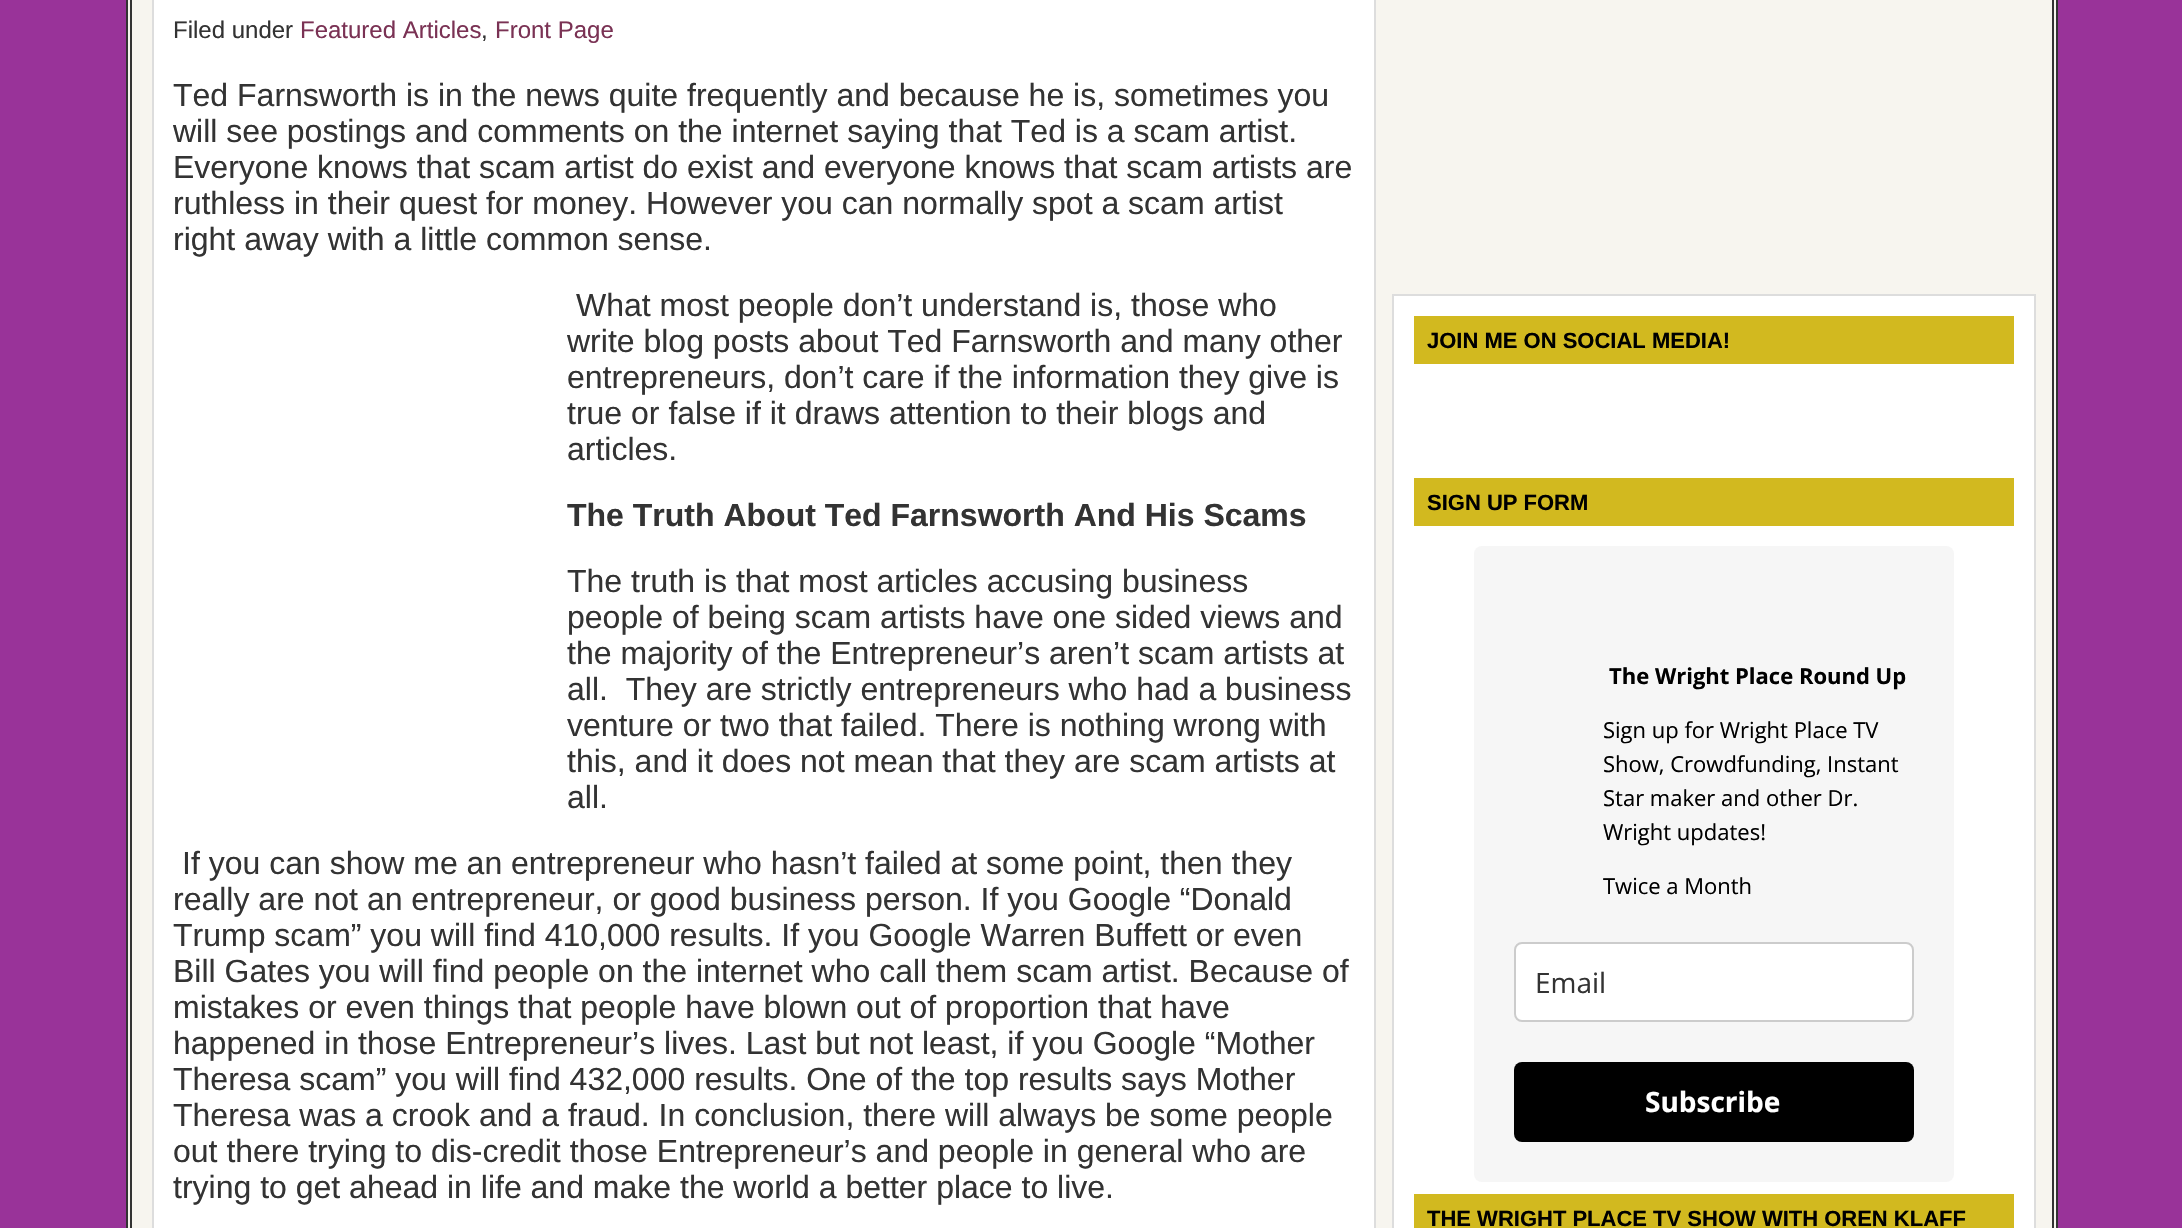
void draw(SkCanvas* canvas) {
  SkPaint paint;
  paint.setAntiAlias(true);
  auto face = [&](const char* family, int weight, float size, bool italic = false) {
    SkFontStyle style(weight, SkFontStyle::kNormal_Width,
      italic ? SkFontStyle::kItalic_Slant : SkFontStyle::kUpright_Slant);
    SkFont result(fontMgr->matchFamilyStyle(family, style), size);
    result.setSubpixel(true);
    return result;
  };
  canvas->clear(0xff993399);
  paint.setColor(0xfff7f5ef);
  canvas->drawRect(SkRect::MakeXYWH(127, -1, 1930, 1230), paint);
  paint.setStroke(true);
  paint.setStrokeWidth(2);
  paint.setColor(0xff333333);
  canvas->drawRect(SkRect::MakeXYWH(127, -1, 1930, 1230), paint);
  canvas->drawRect(SkRect::MakeXYWH(131, -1, 1922, 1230), paint);
  paint.setStroke(false);
  paint.setColor(0xffffffff);
  canvas->drawRect(SkRect::MakeXYWH(153, -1, 1222, 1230), paint);
  paint.setStroke(true);
  paint.setColor(0xffdddddd);
  canvas->drawRect(SkRect::MakeXYWH(153, -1, 1222, 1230), paint);
  paint.setStroke(false);
  paint.setColor(0xffffffff);
  canvas->drawRect(SkRect::MakeXYWH(1393, 295, 642, 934), paint);
  paint.setStroke(true);
  paint.setColor(0xffdddddd);
  canvas->drawRect(SkRect::MakeXYWH(1393, 295, 642, 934), paint);
  paint.setStroke(false);
  paint.setColor(0xffd2b91f);
  canvas->drawRect(SkRect::MakeXYWH(1414, 316, 600, 48), paint);
  canvas->drawRect(SkRect::MakeXYWH(1414, 478, 600, 48), paint);
  paint.setColor(0xfff6f6f6);
  canvas->drawRoundRect(SkRect::MakeXYWH(1474, 546, 480, 636), 8, 8, paint);
  paint.setColor(0xffffffff);
  canvas->drawRoundRect(SkRect::MakeXYWH(1515, 943, 398, 78), 7, 7, paint);
  paint.setStroke(true);
  paint.setColor(0xffcccccc);
  canvas->drawRoundRect(SkRect::MakeXYWH(1515, 943, 398, 78), 7, 7, paint);
  paint.setStroke(false);
  paint.setColor(0xff000000);
  canvas->drawRoundRect(SkRect::MakeXYWH(1514, 1062, 400, 80), 8, 8, paint);
  paint.setColor(0xffd2b91f);
  canvas->drawRect(SkRect::MakeXYWH(1414, 1194, 600, 34), paint);
  auto f0 = face("Liberation Sans", 400, 24);
  paint.setColor(0xff333333);
  canvas->drawString("Filed under", 173, 38, f0, paint);
  paint.setColor(0xff7a3254);
  canvas->drawString("Featured Articles", 300, 38, f0, paint);
  paint.setColor(0xff333333);
  canvas->drawString(",", 481, 38, f0, paint);
  paint.setColor(0xff7a3254);
  canvas->drawString("Front Page", 495, 38, f0, paint);
  auto f1 = face("Liberation Sans", 400, 32);
  paint.setColor(0xff333333);
  {
    const struct { const char* s; float x, y; } items[] = {
      {"Ted Farnsworth is in the news quite frequently and because he is, sometimes you", 173, 106},
      {"will see postings and comments on the internet saying that Ted is a scam artist.", 173, 142},
      {"Everyone knows that scam artist do exist and everyone knows that scam artists are", 173, 178},
      {"ruthless in their quest for money. However you can normally spot a scam artist", 173, 214},
      {"right away with a little common sense.", 173, 250},
      {"What most people don’t understand is, those who", 576, 316},
      {"write blog posts about Ted Farnsworth and many other", 567, 352},
      {"entrepreneurs, don’t care if the information they give is", 567, 388},
      {"true or false if it draws attention to their blogs and", 567, 424},
      {"articles.", 567, 460},
    };
    for (auto [s, x, y] : items) {
      canvas->drawString(s, x, y, f1, paint);
    }
  }
  auto f2 = face("Liberation Sans", 700, 32);
  canvas->drawString("The Truth About Ted Farnsworth And His Scams", 567, 526, f2, paint);
  {
    const struct { const char* s; float x, y; } items[] = {
      {"The truth is that most articles accusing business", 567, 592},
      {"people of being scam artists have one sided views and", 567, 628},
      {"the majority of the Entrepreneur’s aren’t scam artists at", 567, 664},
      {"all.  They are strictly entrepreneurs who had a business", 567, 700},
      {"venture or two that failed. There is nothing wrong with", 567, 736},
      {"this, and it does not mean that they are scam artists at", 567, 772},
      {"all.", 567, 808},
      {"If you can show me an entrepreneur who hasn’t failed at some point, then they", 182, 874},
      {"really are not an entrepreneur, or good business person. If you Google “Donald", 173, 910},
      {"Trump scam” you will find 410,000 results. If you Google Warren Buffett or even", 173, 946},
      {"Bill Gates you will find people on the internet who call them scam artist. Because of", 173, 982},
      {"mistakes or even things that people have blown out of proportion that have", 173, 1018},
      {"happened in those Entrepreneur’s lives. Last but not least, if you Google “Mother", 173, 1054},
      {"Theresa scam” you will find 432,000 results. One of the top results says Mother", 173, 1090},
      {"Theresa was a crook and a fraud. In conclusion, there will always be some people", 173, 1126},
      {"out there trying to dis-credit those Entrepreneur’s and people in general who are", 173, 1162},
      {"trying to get ahead in life and make the world a better place to live.", 173, 1198},
    };
    for (auto [s, x, y] : items) {
      canvas->drawString(s, x, y, f1, paint);
    }
  }
  auto f3 = face("Liberation Sans", 700, 22);
  paint.setColor(0xff000000);
  canvas->drawString("JOIN ME ON SOCIAL MEDIA!", 1427, 348, f3, paint);
  canvas->drawString("SIGN UP FORM", 1427, 510, f3, paint);
  auto f4 = face("Open Sans", 700, 22);
  canvas->drawString("The Wright Place Round Up", 1609, 684, f4, paint);
  auto f5 = face("Open Sans", 400, 22);
  {
    const struct { const char* s; float x, y; } items[] = {
      {"Sign up for Wright Place TV", 1603, 738},
      {"Show, Crowdfunding, Instant", 1603, 772},
      {"Star maker and other Dr.", 1603, 806},
      {"Wright updates!", 1603, 840},
      {"Twice a Month", 1603, 894},
    };
    for (auto [s, x, y] : items) {
      canvas->drawString(s, x, y, f5, paint);
    }
  }
  auto f6 = face("Open Sans", 400, 28);
  paint.setColor(0xff333333);
  canvas->drawString("Email", 1535, 993, f6, paint);
  auto f7 = face("Open Sans", 700, 28);
  paint.setColor(0xffffffff);
  canvas->drawString("Subscribe", 1645, 1112, f7, paint);
  paint.setColor(0xff000000);
  canvas->drawString("THE WRIGHT PLACE TV SHOW WITH OREN KLAFF", 1427, 1226, f3, paint);
}
